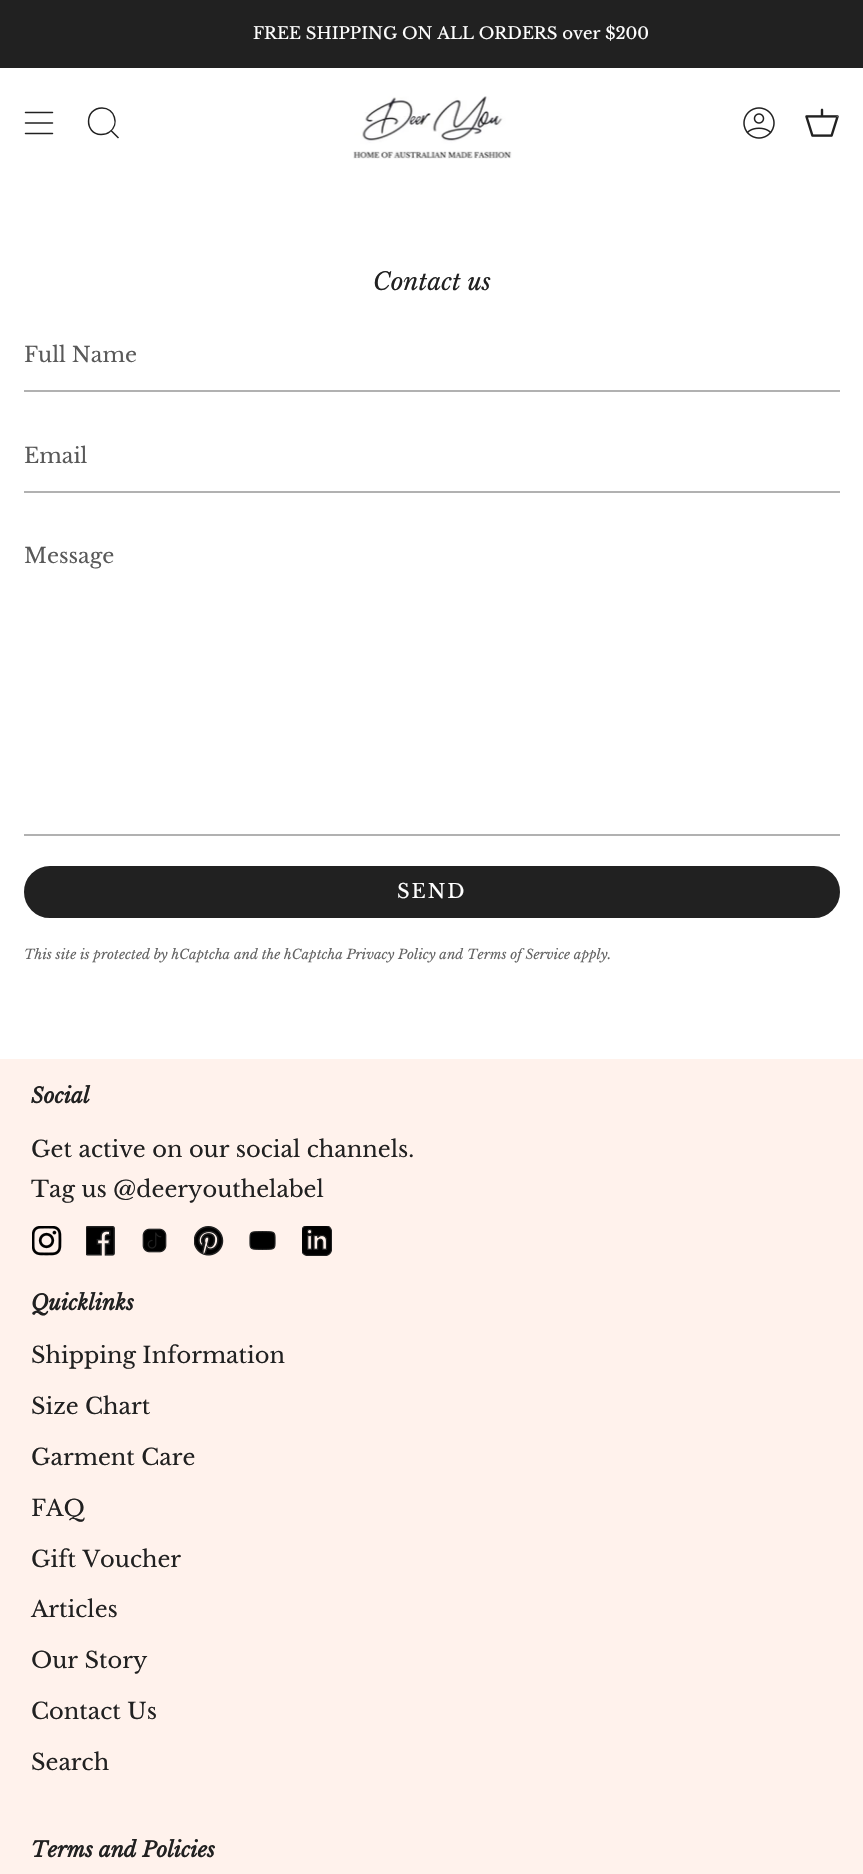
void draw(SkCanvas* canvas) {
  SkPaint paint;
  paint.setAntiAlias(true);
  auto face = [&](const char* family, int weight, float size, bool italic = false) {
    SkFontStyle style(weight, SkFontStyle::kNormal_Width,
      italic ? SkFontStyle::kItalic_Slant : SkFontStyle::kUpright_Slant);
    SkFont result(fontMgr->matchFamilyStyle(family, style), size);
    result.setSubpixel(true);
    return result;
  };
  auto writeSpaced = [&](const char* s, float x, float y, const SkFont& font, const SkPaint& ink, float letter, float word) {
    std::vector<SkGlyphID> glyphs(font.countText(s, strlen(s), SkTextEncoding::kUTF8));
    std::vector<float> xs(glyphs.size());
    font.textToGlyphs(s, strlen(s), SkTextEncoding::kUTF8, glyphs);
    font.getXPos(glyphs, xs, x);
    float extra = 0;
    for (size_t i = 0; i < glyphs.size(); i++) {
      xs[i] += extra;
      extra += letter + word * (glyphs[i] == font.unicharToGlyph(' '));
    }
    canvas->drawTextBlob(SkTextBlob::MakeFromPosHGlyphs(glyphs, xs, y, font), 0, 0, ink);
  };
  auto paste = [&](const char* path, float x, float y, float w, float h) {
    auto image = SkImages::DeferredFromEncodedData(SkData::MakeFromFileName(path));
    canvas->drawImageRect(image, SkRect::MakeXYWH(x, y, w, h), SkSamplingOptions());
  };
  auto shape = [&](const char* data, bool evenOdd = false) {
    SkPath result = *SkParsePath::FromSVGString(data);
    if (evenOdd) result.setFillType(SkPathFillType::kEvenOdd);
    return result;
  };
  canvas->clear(0xffffffff);
  paint.setColor(0xff212121);
  canvas->drawRect(SkRect::MakeXYWH(0, 0, 863, 68), paint);
  paint.setStroke(true);
  paint.setStrokeWidth(1.5f);
  paint.setStrokeCap(SkPaint::kRound_Cap);
  paint.setStrokeJoin(SkPaint::kRound_Join);
  canvas->drawPath(shape("M25.5 112.5H52.5M25.5 123H52.5M25.5 133.5H52.5"), paint);
  paint.setStrokeCap(SkPaint::kButt_Cap);
  paint.setStrokeJoin(SkPaint::kMiter_Join);
  canvas->drawPath(shape("M102 108C114.5 108 120 124.5 109.5 132C107 134 104 134.5 101 134.5C84 134 84.5 108 102 108ZM111 130.5L118.5 138"), paint);
  paste("img/1.png", 353, 96, 159, 63);
  paste("img/2.png", 743, 107, 32, 32);
  paste("img/3.png", 805, 108, 34, 29);
  paint.setStroke(false);
  {
    const struct { float x, y, w, h; SkColor color; } items[] = {
      {24, 390, 816, 2, 0xffb1b1b1},
      {24, 491, 816, 2, 0xffb1b1b1},
      {24, 834, 816, 2, 0xffb1b1b1},
    };
    for (auto [x, y, w, h, color] : items) {
      paint.setColor(color);
      canvas->drawRect(SkRect::MakeXYWH(x, y, w, h), paint);
    }
  }
  paint.setColor(0xff212121);
  canvas->drawRoundRect(SkRect::MakeXYWH(25, 867, 814, 50), 25, 25, paint);
  paint.setStroke(true);
  paint.setStrokeWidth(2);
  canvas->drawRoundRect(SkRect::MakeXYWH(25, 867, 814, 50), 25, 25, paint);
  paint.setStroke(false);
  paint.setColor(0xfffff2ec);
  canvas->drawRect(SkRect::MakeXYWH(0, 1059, 863, 815), paint);
  paste("img/4.png", 32, 1226, 30, 30);
  paste("img/5.png", 86, 1226, 29, 30);
  paste("img/6.png", 142, 1228, 25, 25);
  paste("img/7.png", 194, 1226, 30, 30);
  paste("img/8.png", 249, 1231, 27, 19);
  paste("img/9.png", 302, 1226, 30, 30);
  auto f0 = face("Libre Baskerville", 400, 16.5f);
  paint.setColor(0xffffffff);
  canvas->drawString("FREE SHIPPING ON ALL ORDERS over $200", 253, 39, f0, paint);
  auto f1 = face("Libre Baskerville", 400, 24.25f, true);
  paint.setColor(0xff212121);
  canvas->drawString("Contact us", 373, 290, f1, paint);
  auto f2 = face("Libre Baskerville", 400, 21);
  paint.setColor(0xff595959);
  {
    const struct { const char* s; float x, y; } items[] = {
      {"Full Name", 24, 362},
      {"Email", 24, 463},
      {"Message", 24, 563},
    };
    for (auto [s, x, y] : items) {
      canvas->drawString(s, x, y, f2, paint);
    }
  }
  auto f3 = face("Libre Baskerville", 400, 19.5f);
  paint.setColor(0xffffffff);
  writeSpaced("SEND", 397, 898, f3, paint, 2, 0);
  auto f4 = face("Libre Baskerville", 400, 13.4f, true);
  paint.setColor(0xff646464);
  canvas->drawString("This site is protected by hCaptcha and the hCaptcha Privacy Policy and Terms of Service apply.", 24, 959, f4, paint);
  auto f5 = face("Libre Baskerville", 700, 21, true);
  paint.setColor(0xff212121);
  canvas->drawString("Social", 31, 1103, f5, paint);
  auto f6 = face("Libre Baskerville", 400, 22.5f);
  canvas->drawString("Get active on our social channels.", 31, 1157, f6, paint);
  canvas->drawString("Tag us @deeryouthelabel", 31, 1197, f6, paint);
  canvas->drawString("Quicklinks", 31, 1310, f5, paint);
  {
    const struct { const char* s; float x, y; } items[] = {
      {"Shipping Information", 31, 1363},
      {"Size Chart", 31, 1414},
      {"Garment Care", 31, 1465},
      {"FAQ", 31, 1516},
      {"Gift Voucher", 31, 1567},
      {"Articles", 31, 1617},
      {"Our Story", 31, 1668},
      {"Contact Us", 31, 1719},
      {"Search", 31, 1770},
    };
    for (auto [s, x, y] : items) {
      canvas->drawString(s, x, y, f6, paint);
    }
  }
  canvas->drawString("Terms and Policies", 31, 1857, f5, paint);
}
